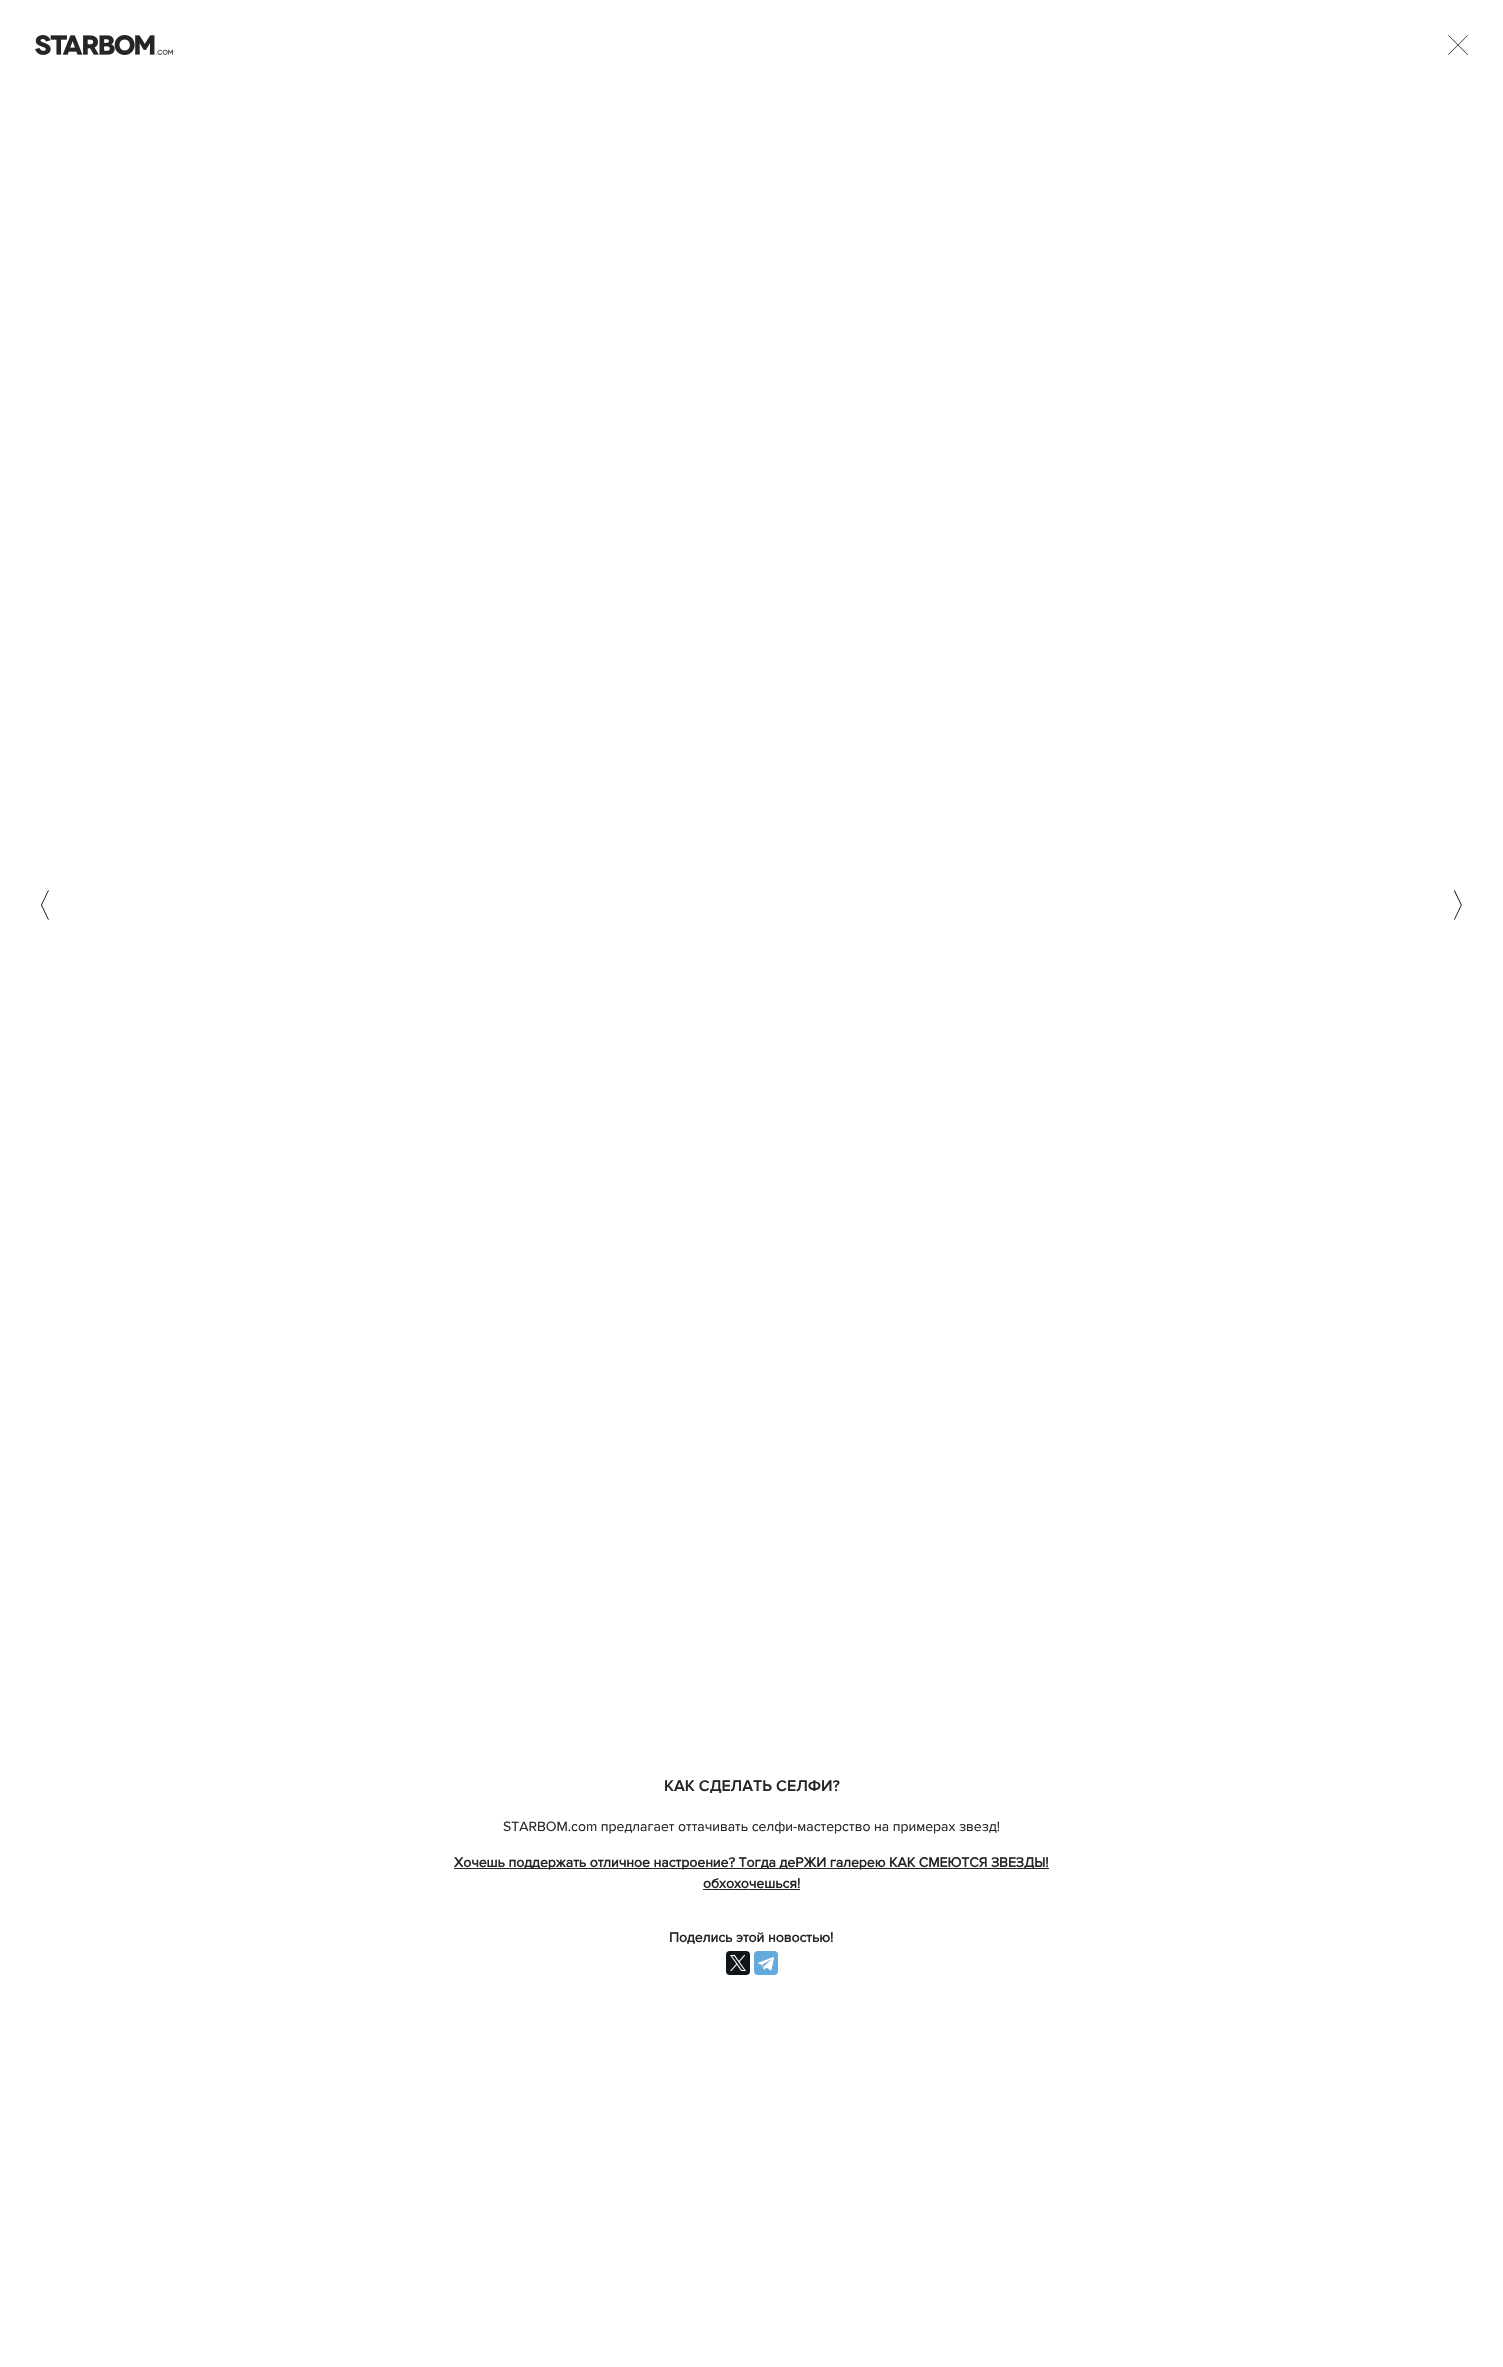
void draw(SkCanvas* canvas) {
  SkPaint paint;
  paint.setAntiAlias(true);
  auto face = [&](const char* family, int weight, float size, bool italic = false) {
    SkFontStyle style(weight, SkFontStyle::kNormal_Width,
      italic ? SkFontStyle::kItalic_Slant : SkFontStyle::kUpright_Slant);
    SkFont result(fontMgr->matchFamilyStyle(family, style), size);
    result.setSubpixel(true);
    return result;
  };
  auto paste = [&](const char* path, float x, float y, float w, float h) {
    auto image = SkImages::DeferredFromEncodedData(SkData::MakeFromFileName(path));
    canvas->drawImageRect(image, SkRect::MakeXYWH(x, y, w, h), SkSamplingOptions());
  };
  canvas->clear(0xffffffff);
  paste("img/1.png", 35, 35, 138, 20);
  paste("img/2.png", 1448, 35, 20, 20);
  paste("img/3.png", 41, 890, 8, 30);
  paste("img/4.png", 1454, 890, 8, 30);
  paint.setColor(0xff262424);
  canvas->drawRect(SkRect::MakeXYWH(454, 1868, 595, 1), paint);
  canvas->drawRect(SkRect::MakeXYWH(703, 1889, 97, 1), paint);
  paint.setColor(0xff0f1419);
  canvas->drawRoundRect(SkRect::MakeXYWH(726, 1951, 24, 24), 4, 4, paint);
  paste("img/5.png", 730, 1955, 16, 16);
  paint.setColor(0xff64a9dc);
  canvas->drawRoundRect(SkRect::MakeXYWH(754, 1951, 24, 24), 4, 4, paint);
  paste("img/6.png", 758, 1957, 16, 14);
  auto f0 = face("Proxima Nova", 600, 16);
  paint.setColor(0xff262424);
  canvas->drawString("КАК СДЕЛАТЬ СЕЛФИ?", 664, 1791, f0, paint);
  auto f1 = face("Proxima Nova", 400, 14);
  canvas->drawString("STARBOM.com предлагает оттачивать селфи-мастерство на примерах звезд!", 503, 1831, f1, paint);
  auto f2 = face("Proxima Nova", 700, 14);
  {
    const struct { const char* s; float x, y; } items[] = {
      {"Хочешь поддержать отличное настроение? Тогда деРЖИ галерею КАК СМЕЮТСЯ ЗВЕЗДЫ!", 454, 1867},
      {"обхохочешься!", 703, 1888},
      {"Поделись этой новостью!", 669, 1942},
    };
    for (auto [s, x, y] : items) {
      canvas->drawString(s, x, y, f2, paint);
    }
  }
}
